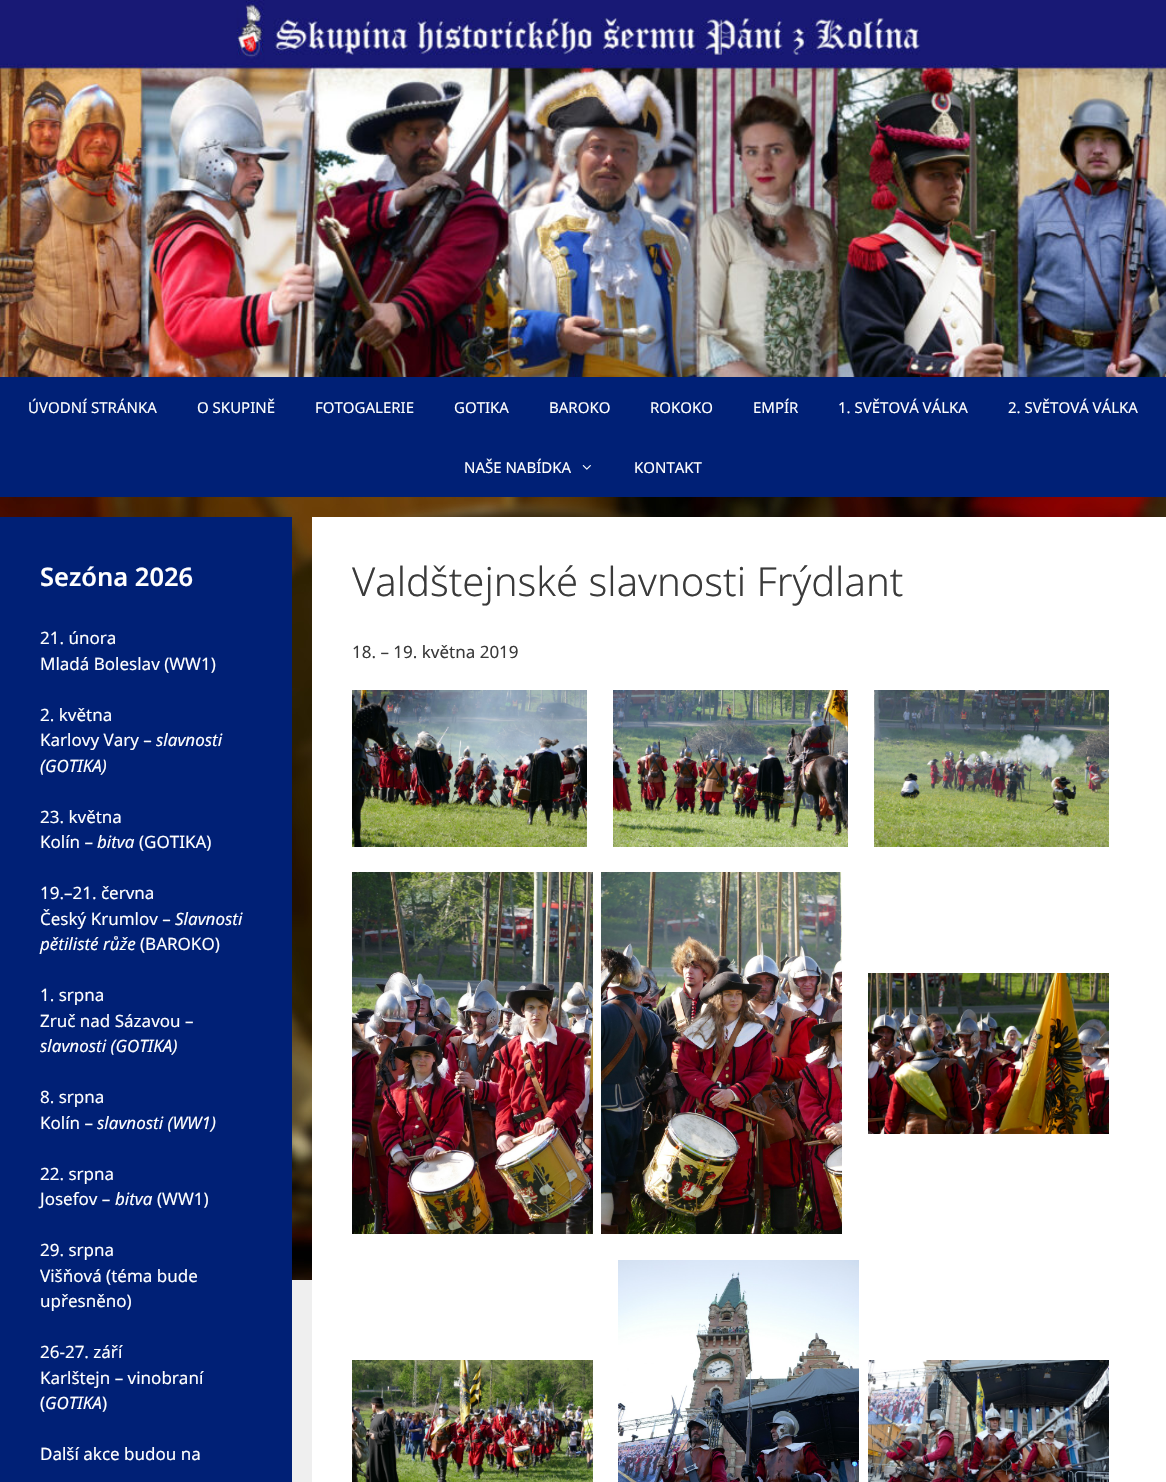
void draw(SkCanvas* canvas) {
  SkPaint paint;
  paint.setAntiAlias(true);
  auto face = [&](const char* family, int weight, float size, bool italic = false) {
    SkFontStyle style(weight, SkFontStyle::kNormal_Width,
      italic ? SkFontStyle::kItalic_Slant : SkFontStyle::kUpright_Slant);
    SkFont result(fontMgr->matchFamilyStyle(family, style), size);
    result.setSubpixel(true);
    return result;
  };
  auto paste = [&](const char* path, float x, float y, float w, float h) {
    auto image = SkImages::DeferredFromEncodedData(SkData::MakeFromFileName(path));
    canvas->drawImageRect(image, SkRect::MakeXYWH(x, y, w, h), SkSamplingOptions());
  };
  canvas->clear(0xffefefef);
  paste("img/1.png", 0, 0, 1166, 377);
  paint.setColor(0xff002076);
  canvas->drawRect(SkRect::MakeXYWH(0, 377, 1166, 120), paint);
  paste("img/2.png", 582, 465, 9, 5);
  paste("img/3.png", 0, 497, 1166, 783);
  canvas->drawRect(SkRect::MakeXYWH(0, 517, 292, 965), paint);
  paint.setColor(0xffffffff);
  canvas->drawRect(SkRect::MakeXYWH(312, 517, 854, 965), paint);
  paste("img/4.png", 352, 690, 235, 157);
  paste("img/5.png", 613, 690, 235, 157);
  paste("img/6.png", 874, 690, 235, 157);
  paste("img/7.png", 352, 872, 241, 362);
  paste("img/8.png", 601, 872, 241, 362);
  paste("img/9.png", 868, 973, 241, 161);
  paste("img/10.png", 352, 1360, 241, 122);
  paste("img/11.png", 618, 1260, 241, 222);
  paste("img/12.png", 868, 1360, 241, 122);
  auto f0 = face("Noto Sans", 400, 15);
  {
    const struct { const char* s; float x, y; } items[] = {
      {"ÚVODNÍ STRÁNKA", 28, 413},
      {"O SKUPINĚ", 197, 413},
      {"FOTOGALERIE", 315, 413},
      {"GOTIKA", 454, 413},
      {"BAROKO", 549, 413},
      {"ROKOKO", 650, 413},
      {"EMPÍR", 753, 413},
      {"1. SVĚTOVÁ VÁLKA", 838, 413},
      {"2. SVĚTOVÁ VÁLKA", 1008, 413},
      {"NAŠE NABÍDKA", 464, 473},
      {"KONTAKT", 634, 473},
    };
    for (auto [s, x, y] : items) {
      canvas->drawString(s, x, y, f0, paint);
    }
  }
  auto f1 = face("Noto Sans", 600, 25.5f);
  canvas->drawString("Sezóna 2026", 40, 586, f1, paint);
  auto f2 = face("Noto Sans", 400, 17);
  {
    const struct { const char* s; float x, y; } items[] = {
      {"21. února", 40, 644},
      {"Mladá Boleslav (WW1)", 40, 670},
      {"2. května", 40, 721},
      {"Karlovy Vary –", 40, 746},
    };
    for (auto [s, x, y] : items) {
      canvas->drawString(s, x, y, f2, paint);
    }
  }
  auto f3 = face("Noto Sans", 400, 17, true);
  canvas->drawString("slavnosti", 156, 746, f3, paint);
  canvas->drawString("(GOTIKA)", 40, 772, f3, paint);
  canvas->drawString("23. května", 40, 823, f2, paint);
  canvas->drawString("Kolín –", 40, 848, f2, paint);
  canvas->drawString("bitva", 97, 848, f3, paint);
  {
    const struct { const char* s; float x, y; } items[] = {
      {"(GOTIKA)", 139, 848},
      {"19.–21. června", 40, 899},
      {"Český Krumlov –", 40, 925},
    };
    for (auto [s, x, y] : items) {
      canvas->drawString(s, x, y, f2, paint);
    }
  }
  canvas->drawString("Slavnosti", 175, 925, f3, paint);
  canvas->drawString("pětilisté růže", 40, 950, f3, paint);
  {
    const struct { const char* s; float x, y; } items[] = {
      {"(BAROKO)", 140, 950},
      {"1. srpna", 40, 1001},
      {"Zruč nad Sázavou –", 40, 1027},
    };
    for (auto [s, x, y] : items) {
      canvas->drawString(s, x, y, f2, paint);
    }
  }
  canvas->drawString("slavnosti (GOTIKA)", 40, 1052, f3, paint);
  canvas->drawString("8. srpna", 40, 1103, f2, paint);
  canvas->drawString("Kolín –", 40, 1129, f2, paint);
  canvas->drawString("slavnosti (WW1)", 97, 1129, f3, paint);
  canvas->drawString("22. srpna", 40, 1180, f2, paint);
  canvas->drawString("Josefov –", 40, 1205, f2, paint);
  canvas->drawString("bitva", 115, 1205, f3, paint);
  {
    const struct { const char* s; float x, y; } items[] = {
      {"(WW1)", 157, 1205},
      {"29. srpna", 40, 1256},
      {"Višňová (téma bude", 40, 1282},
      {"upřesněno)", 40, 1307},
      {"26-27. září", 40, 1358},
      {"Karlštejn – vinobraní", 40, 1384},
      {"(", 40, 1409},
    };
    for (auto [s, x, y] : items) {
      canvas->drawString(s, x, y, f2, paint);
    }
  }
  canvas->drawString("GOTIKA", 45, 1409, f3, paint);
  canvas->drawString(")", 102, 1409, f2, paint);
  canvas->drawString("Další akce budou na", 40, 1460, f2, paint);
  auto f4 = face("Noto Sans", 300, 40);
  paint.setColor(0xff3a3a3a);
  canvas->drawString("Valdštejnské slavnosti Frýdlant", 352, 596, f4, paint);
  canvas->drawString("18. – 19. května 2019", 352, 658, f2, paint);
}
